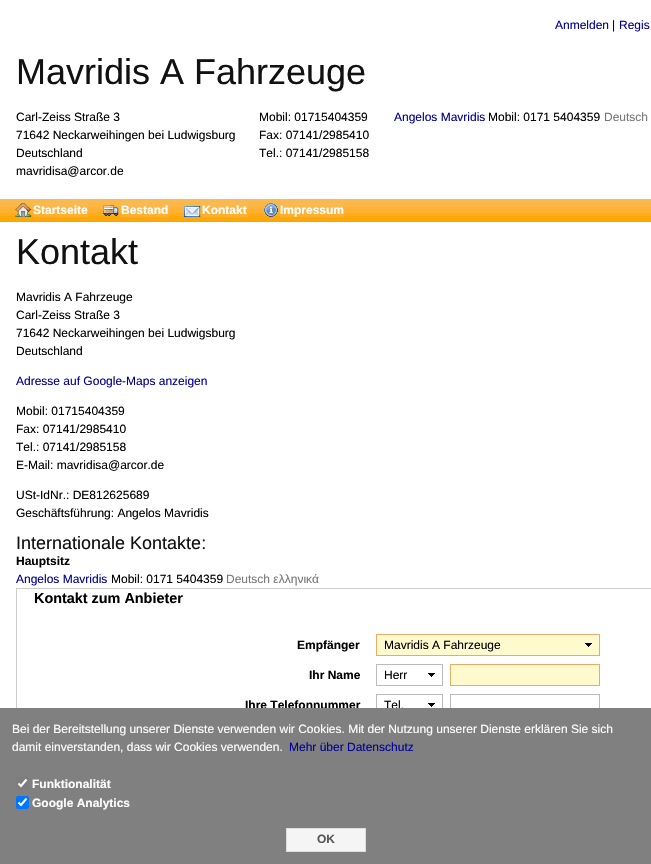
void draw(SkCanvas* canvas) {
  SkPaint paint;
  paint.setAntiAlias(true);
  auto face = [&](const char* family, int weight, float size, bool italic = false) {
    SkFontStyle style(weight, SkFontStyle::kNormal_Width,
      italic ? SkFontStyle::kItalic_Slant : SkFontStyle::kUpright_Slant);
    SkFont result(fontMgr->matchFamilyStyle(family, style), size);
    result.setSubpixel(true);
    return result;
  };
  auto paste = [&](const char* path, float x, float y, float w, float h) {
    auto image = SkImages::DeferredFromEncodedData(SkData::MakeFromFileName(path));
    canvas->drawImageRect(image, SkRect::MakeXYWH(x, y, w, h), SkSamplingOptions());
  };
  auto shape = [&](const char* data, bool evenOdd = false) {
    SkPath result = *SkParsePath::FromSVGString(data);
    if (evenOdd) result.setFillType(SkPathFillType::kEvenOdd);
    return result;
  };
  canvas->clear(0xffffffff);
  paste("img/1.png", 0, 199, 651, 23);
  paste("img/2.png", 15, 203, 17, 14);
  paste("img/3.png", 33, 203, 55, 14);
  paste("img/4.png", 103, 205, 16, 11);
  paste("img/5.png", 121, 203, 48, 14);
  paste("img/6.png", 202, 203, 45, 14);
  paste("img/7.png", 184, 206, 17, 11);
  paste("img/8.png", 264, 203, 14, 14);
  paste("img/9.png", 280, 203, 64, 14);
  paint.setStroke(true);
  paint.setStrokeWidth(1);
  paint.setColor(0xffcccccc);
  canvas->drawRect(SkRect::MakeXYWH(16.5f, 588.5f, 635, 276), paint);
  paint.setStroke(false);
  paint.setColor(0xfffffacd);
  canvas->drawRect(SkRect::MakeXYWH(377, 635, 222, 20), paint);
  paste("img/10.png", 585, 643, 7, 4);
  paint.setStroke(true);
  paint.setColor(0xffe5ab69);
  canvas->drawRect(SkRect::MakeXYWH(376.5f, 634.5f, 223, 21), paint);
  paste("img/11.png", 428, 673, 7, 4);
  paint.setColor(0xffbbbbbb);
  canvas->drawRect(SkRect::MakeXYWH(376.5f, 664.5f, 66, 21), paint);
  paint.setStroke(false);
  paint.setColor(0xfffffacd);
  canvas->drawRect(SkRect::MakeXYWH(450.5f, 664.5f, 149, 21), paint);
  paint.setStroke(true);
  paint.setColor(0xffe5ab69);
  canvas->drawRect(SkRect::MakeXYWH(450.5f, 664.5f, 149, 21), paint);
  paste("img/11.png", 428, 703, 7, 4);
  paint.setColor(0xffbbbbbb);
  canvas->drawRect(SkRect::MakeXYWH(376.5f, 694.5f, 66, 21), paint);
  canvas->drawRect(SkRect::MakeXYWH(450.5f, 694.5f, 149, 21), paint);
  auto f0 = face("Liberation Sans", 400, 12);
  paint.setStroke(false);
  paint.setColor(0xff000099);
  canvas->drawString("Anmelden", 555, 29, f0, paint);
  paint.setColor(0xff000000);
  canvas->drawString("|", 612, 29, f0, paint);
  paint.setColor(0xff000099);
  canvas->drawString("Regis", 619, 29, f0, paint);
  auto f1 = face("Liberation Sans", 400, 36);
  paint.setColor(0xff111111);
  canvas->drawString("Mavridis A Fahrzeuge", 16, 84, f1, paint);
  paint.setColor(0xff000000);
  {
    const struct { const char* s; float x, y; } items[] = {
      {"Carl-Zeiss Straße 3", 16, 121},
      {"71642 Neckarweihingen bei Ludwigsburg", 16, 139},
      {"Deutschland", 16, 157},
      {"mavridisa@arcor.de", 16, 175},
      {"Mobil: 01715404359", 259, 121},
      {"Fax: 07141/2985410", 259, 139},
      {"Tel.: 07141/2985158", 259, 157},
    };
    for (auto [s, x, y] : items) {
      canvas->drawString(s, x, y, f0, paint);
    }
  }
  paint.setColor(0xff000099);
  canvas->drawString("Angelos Mavridis", 394, 121, f0, paint);
  paint.setColor(0xff000000);
  canvas->drawString("Mobil: 0171 5404359", 488, 121, f0, paint);
  paint.setColor(0xff777777);
  canvas->drawString("Deutsch", 604, 121, f0, paint);
  auto f2 = face("Liberation Sans", 700, 12);
  paint.setColor(0xffffffff);
  {
    const struct { const char* s; float x, y; } items[] = {
      {"Startseite", 33, 214},
      {"Bestand", 121, 214},
      {"Kontakt", 202, 214},
      {"Impressum", 280, 214},
    };
    for (auto [s, x, y] : items) {
      canvas->drawString(s, x, y, f2, paint);
    }
  }
  paint.setColor(0xff111111);
  canvas->drawString("Kontakt", 16, 264, f1, paint);
  paint.setColor(0xff000000);
  {
    const struct { const char* s; float x, y; } items[] = {
      {"Mavridis A Fahrzeuge", 16, 301},
      {"Carl-Zeiss Straße 3", 16, 319},
      {"71642 Neckarweihingen bei Ludwigsburg", 16, 337},
      {"Deutschland", 16, 355},
    };
    for (auto [s, x, y] : items) {
      canvas->drawString(s, x, y, f0, paint);
    }
  }
  paint.setColor(0xff000099);
  canvas->drawString("Adresse auf Google-Maps anzeigen", 16, 385, f0, paint);
  paint.setColor(0xff000000);
  {
    const struct { const char* s; float x, y; } items[] = {
      {"Mobil: 01715404359", 16, 415},
      {"Fax: 07141/2985410", 16, 433},
      {"Tel.: 07141/2985158", 16, 451},
      {"E-Mail: mavridisa@arcor.de", 16, 469},
      {"USt-IdNr.: DE812625689", 16, 499},
      {"Geschäftsführung: Angelos Mavridis", 16, 517},
    };
    for (auto [s, x, y] : items) {
      canvas->drawString(s, x, y, f0, paint);
    }
  }
  auto f3 = face("Liberation Sans", 400, 18);
  paint.setColor(0xff111111);
  canvas->drawString("Internationale Kontakte:", 16, 549, f3, paint);
  paint.setColor(0xff000000);
  canvas->drawString("Hauptsitz", 16, 565, f2, paint);
  paint.setColor(0xff000099);
  canvas->drawString("Angelos Mavridis", 16, 583, f0, paint);
  paint.setColor(0xff000000);
  canvas->drawString("Mobil: 0171 5404359", 111, 583, f0, paint);
  paint.setColor(0xff777777);
  canvas->drawString("Deutsch ελληνικά", 226, 583, f0, paint);
  auto f4 = face("Liberation Sans", 700, 14.4f);
  paint.setColor(0xff000000);
  canvas->drawString("Kontakt zum Anbieter", 34, 603, f4, paint);
  canvas->drawString("Empfänger", 297, 649, f2, paint);
  canvas->drawString("Mavridis A Fahrzeuge", 384, 649, f0, paint);
  canvas->drawString("Ihr Name", 309, 679, f2, paint);
  canvas->drawString("Herr", 384, 679, f0, paint);
  canvas->drawString("Ihre Telefonnummer", 245, 709, f2, paint);
  canvas->drawString("Tel.", 384, 709, f0, paint);
  paint.setColor(0xff808080);
  canvas->drawRect(SkRect::MakeXYWH(0, 708, 651, 156), paint);
  paint.setColor(0xffffffff);
  canvas->drawString("Bei der Bereitstellung unserer Dienste verwenden wir Cookies. Mit der Nutzung unserer Dienste erklären Sie sich", 12, 733, f0, paint);
  canvas->drawString("damit einverstanden, dass wir Cookies verwenden.", 12, 751, f0, paint);
  paint.setColor(0xff000099);
  canvas->drawString("Mehr über Datenschutz", 289, 751, f0, paint);
  paint.setColor(0xff7d7d7d);
  canvas->drawRoundRect(SkRect::MakeXYWH(16, 777, 13, 13), 2, 2, paint);
  paint.setStroke(true);
  paint.setStrokeWidth(2.1f);
  paint.setColor(0xffffffff);
  canvas->drawPath(shape("M18.5 783.5L21 786L26.5 779.5"), paint);
  paint.setStroke(false);
  canvas->drawString("Funktionalität", 32, 788, f2, paint);
  paint.setColor(0xff0075ff);
  canvas->drawRoundRect(SkRect::MakeXYWH(16, 796, 13, 13), 2, 2, paint);
  paint.setStroke(true);
  paint.setColor(0xffffffff);
  canvas->drawPath(shape("M18.5 802.5L21 805L26.5 798.5"), paint);
  paint.setStroke(false);
  canvas->drawString("Google Analytics", 32, 807, f2, paint);
  paint.setColor(0xfff5f5f5);
  canvas->drawRect(SkRect::MakeXYWH(286.5f, 828.5f, 79, 23), paint);
  paint.setStroke(true);
  paint.setStrokeWidth(1);
  paint.setColor(0xffdedede);
  canvas->drawRect(SkRect::MakeXYWH(286.5f, 828.5f, 79, 23), paint);
  paint.setStroke(false);
  paint.setColor(0xff565656);
  canvas->drawString("OK", 317, 843, f2, paint);
}
